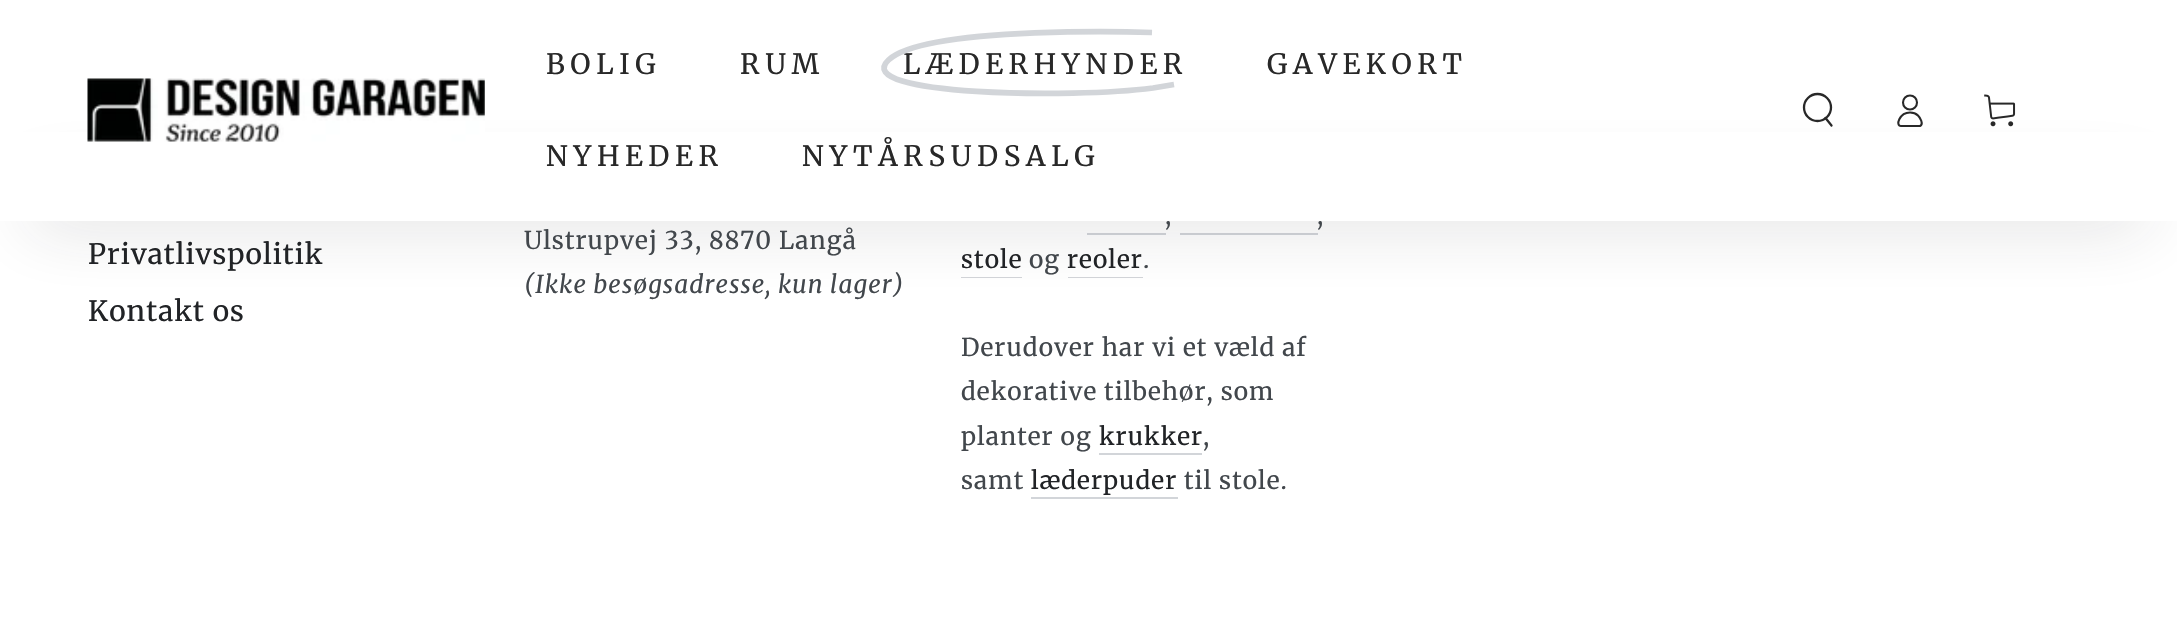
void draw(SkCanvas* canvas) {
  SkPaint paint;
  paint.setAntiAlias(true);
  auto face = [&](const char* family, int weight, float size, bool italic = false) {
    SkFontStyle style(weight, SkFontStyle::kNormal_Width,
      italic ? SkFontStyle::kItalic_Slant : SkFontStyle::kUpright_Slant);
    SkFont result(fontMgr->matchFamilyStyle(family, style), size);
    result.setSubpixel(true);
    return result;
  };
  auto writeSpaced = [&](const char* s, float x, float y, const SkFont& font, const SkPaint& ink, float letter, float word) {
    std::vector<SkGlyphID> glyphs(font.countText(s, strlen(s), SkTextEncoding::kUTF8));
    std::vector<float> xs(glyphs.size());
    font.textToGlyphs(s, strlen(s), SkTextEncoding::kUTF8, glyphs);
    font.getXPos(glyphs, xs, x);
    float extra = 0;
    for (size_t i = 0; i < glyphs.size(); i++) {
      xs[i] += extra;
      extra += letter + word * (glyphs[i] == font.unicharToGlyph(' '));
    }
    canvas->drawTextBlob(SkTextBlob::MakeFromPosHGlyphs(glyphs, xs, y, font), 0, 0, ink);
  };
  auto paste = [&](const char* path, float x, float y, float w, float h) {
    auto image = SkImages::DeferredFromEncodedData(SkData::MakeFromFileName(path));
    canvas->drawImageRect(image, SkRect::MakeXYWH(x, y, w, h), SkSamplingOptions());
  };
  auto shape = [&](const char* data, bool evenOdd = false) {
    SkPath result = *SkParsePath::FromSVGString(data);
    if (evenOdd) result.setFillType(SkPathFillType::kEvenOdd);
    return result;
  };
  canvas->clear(0xffffffff);
  {
    const struct { float x, y, w, h; SkColor color; } items[] = {
      {1087, 233, 79, 2, 0xffd2d5d9},
      {1180, 233, 138, 2, 0xffd2d5d9},
      {961, 277, 61, 1, 0xffd2d5d9},
      {1068, 277, 75, 1, 0xffd2d5d9},
    };
    for (auto [x, y, w, h, color] : items) {
      paint.setColor(color);
      canvas->drawRect(SkRect::MakeXYWH(x, y, w, h), paint);
    }
  }
  paint.setColor(0x33212326);
  paint.setMaskFilter(SkMaskFilter::MakeBlur(kNormal_SkBlurStyle, 35));
  canvas->drawRoundRect(SkRect::MakeXYWH(26, 186, 2125, 35), 17.5f, 17.5f, paint);
  paint.setMaskFilter(nullptr);
  paint.setStroke(true);
  paint.setStrokeWidth(2.3f);
  paint.setColor(0xff282828);
  canvas->drawCircle(1817.5f, 107.5f, 13.5f, paint);
  paint.setStrokeCap(SkPaint::kRound_Cap);
  canvas->drawPath(shape("M1825.5 118L1831.5 125.5"), paint);
  paint.setStrokeWidth(2.1f);
  paint.setStrokeCap(SkPaint::kButt_Cap);
  canvas->drawPath(shape("M1910 112.5C1899.5 112.5 1895 126 1901 126H1920C1924 124 1920 117.5 1918 115.5C1916 113.5 1913 112.5 1910 112.5Z"), paint);
  canvas->drawCircle(1910, 102.5f, 7, paint);
  paste("img/2.png", 1984, 94, 32, 33);
  paint.setStroke(false);
  paint.setColor(0xffd2d5d9);
  canvas->drawRect(SkRect::MakeXYWH(1099, 453, 103, 2), paint);
  canvas->drawRect(SkRect::MakeXYWH(1031, 497, 147, 2), paint);
  auto f0 = face("Merriweather", 400, 28);
  paint.setColor(0xff282828);
  {
    const struct { const char* s; float x, y; } items[] = {
      {"BOLIG", 546, 74},
      {"RUM", 740, 74},
      {"LÆDERHYNDER", 903, 74},
    };
    for (auto [s, x, y] : items) {
      writeSpaced(s, x, y, f0, paint, 5.6f, 0);
    }
  }
  paint.setStroke(true);
  paint.setStrokeWidth(5.7f);
  paint.setColor(0xffd2d5d9);
  canvas->drawPath(shape("M1152 32.5C1152 32.5 927 24.5 888.5 60C849.5 96 1074 98.5 1153 88L1174 84.5"), paint);
  paint.setStroke(false);
  paint.setColor(0xff282828);
  writeSpaced("GAVEKORT", 1267, 74, f0, paint, 5.6f, 0);
  paint.setColor(0xff212326);
  writeSpaced("Privatlivspolitik", 88, 264, f0, paint, 1.05f, 0);
  writeSpaced("Kontakt os", 88, 321, f0, paint, 1.05f, 0);
  auto f1 = face("Merriweather", 400, 24.5f);
  paint.setColor(0xff42474c);
  writeSpaced("Ulstrupvej 33, 8870 Langå", 524, 249, f1, paint, 1.05f, 0);
  auto f2 = face("Merriweather", 400, 24.5f, true);
  writeSpaced("(Ikke besøgsadresse, kun lager)", 524, 293, f2, paint, 1.05f, 0);
  writeSpaced(",", 1165, 224, f1, paint, 1.05f, 0);
  writeSpaced(",", 1317, 224, f1, paint, 1.05f, 0);
  paint.setColor(0xffffffff);
  canvas->drawRect(SkRect::MakeXYWH(0, 132, 2177, 89), paint);
  paste("img/1.png", 87, 78, 398, 64);
  paint.setColor(0xff282828);
  writeSpaced("NYTÅRSUDSALG", 802, 166, f0, paint, 5.6f, 0);
  writeSpaced("NYHEDER", 546, 166, f0, paint, 5.6f, 0);
  paint.setColor(0xff212326);
  writeSpaced("stole", 961, 268, f1, paint, 1.05f, 0);
  paint.setColor(0xff42474c);
  writeSpaced("og", 1029, 268, f1, paint, 1.05f, 0);
  paint.setColor(0xff212326);
  writeSpaced("reoler", 1067, 268, f1, paint, 1.05f, 0);
  paint.setColor(0xff42474c);
  {
    const struct { const char* s; float x, y; } items[] = {
      {".", 1143, 268},
      {"Derudover har vi et væld af", 961, 356},
      {"dekorative tilbehør, som", 961, 400},
      {"planter og", 961, 445},
    };
    for (auto [s, x, y] : items) {
      writeSpaced(s, x, y, f1, paint, 1.05f, 0);
    }
  }
  paint.setColor(0xff212326);
  writeSpaced("krukker", 1099, 445, f1, paint, 1.05f, 0);
  paint.setColor(0xff42474c);
  writeSpaced(",", 1203, 445, f1, paint, 1.05f, 0);
  writeSpaced("samt", 961, 489, f1, paint, 1.05f, 0);
  paint.setColor(0xff212326);
  writeSpaced("læderpuder", 1031, 489, f1, paint, 1.05f, 0);
  paint.setColor(0xff42474c);
  writeSpaced("til stole.", 1184, 489, f1, paint, 1.05f, 0);
}
